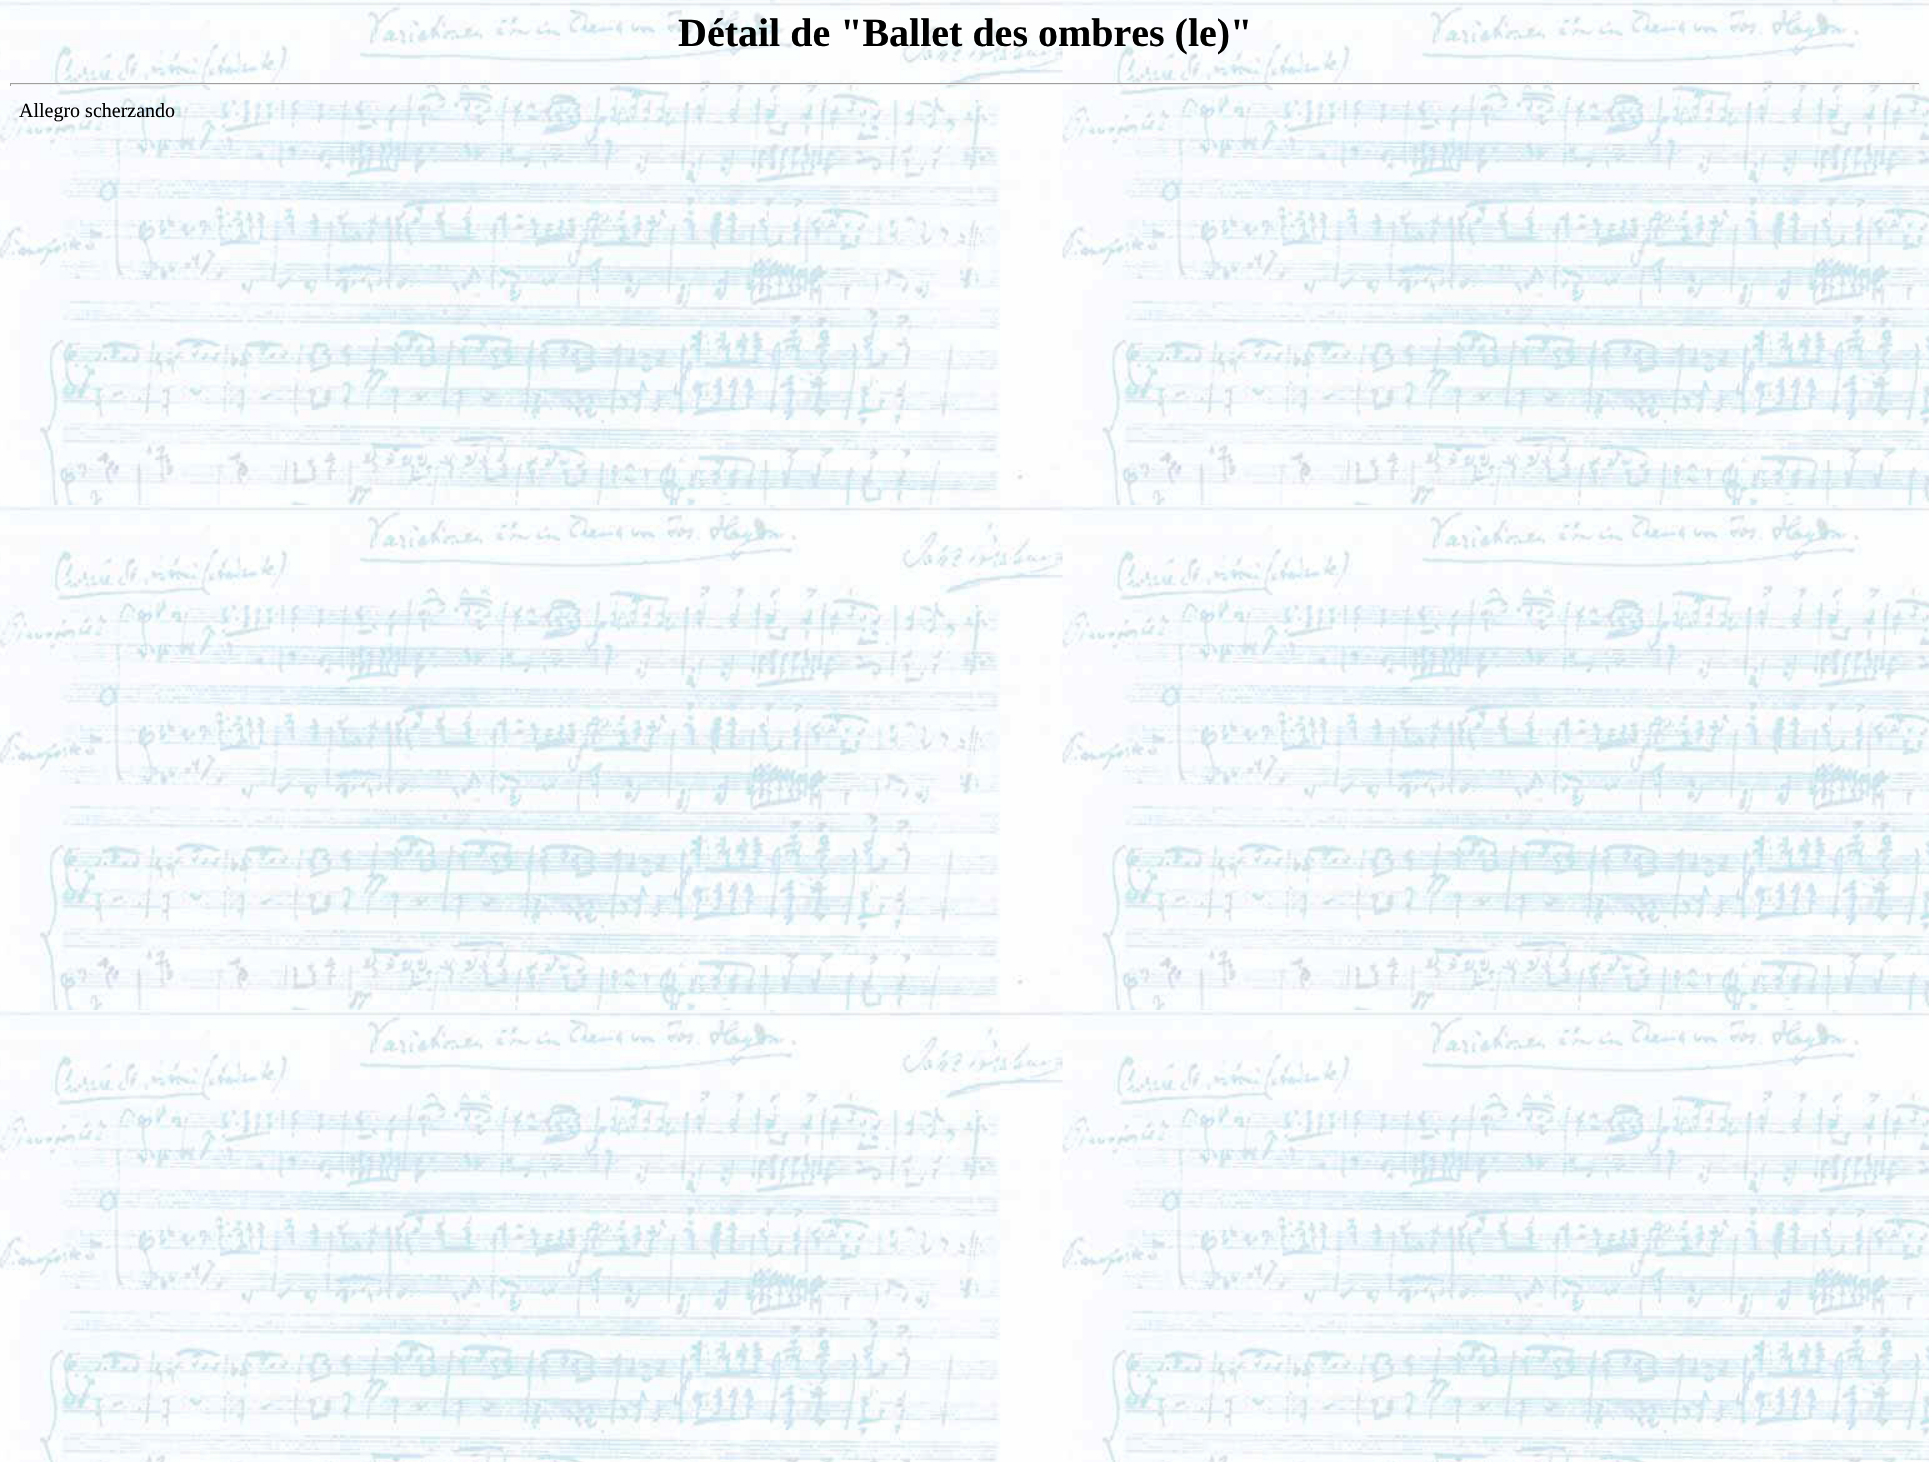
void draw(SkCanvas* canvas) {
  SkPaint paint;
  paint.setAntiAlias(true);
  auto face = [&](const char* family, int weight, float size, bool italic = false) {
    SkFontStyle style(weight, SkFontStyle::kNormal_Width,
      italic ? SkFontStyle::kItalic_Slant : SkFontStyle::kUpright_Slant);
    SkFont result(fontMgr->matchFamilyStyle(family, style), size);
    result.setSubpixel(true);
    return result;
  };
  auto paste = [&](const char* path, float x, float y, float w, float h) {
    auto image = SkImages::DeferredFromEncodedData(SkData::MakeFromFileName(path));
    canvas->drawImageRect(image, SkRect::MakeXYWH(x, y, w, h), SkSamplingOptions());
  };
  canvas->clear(0xffffffff);
  paste("img/1.png", 0, 0, 1929, 1462);
  {
    const struct { float x, y, w, h; SkColor color; } items[] = {
      {10, 83, 1910, 1, 0xff9f9f9f},
      {1919, 83, 1, 3, 0xffeeeeee},
      {10, 84, 1910, 1, 0xffeeeeee},
      {10, 83, 1, 3, 0xff9f9f9f},
    };
    for (auto [x, y, w, h, color] : items) {
      paint.setColor(color);
      canvas->drawRect(SkRect::MakeXYWH(x, y, w, h), paint);
    }
  }
  auto f0 = face("Liberation Serif", 700, 40);
  paint.setColor(0xff000000);
  canvas->drawString("Détail de \"Ballet des ombres (le)\"", 678, 46, f0, paint);
  auto f1 = face("Liberation Serif", 400, 20);
  canvas->drawString("Allegro scherzando", 19, 117, f1, paint);
}
